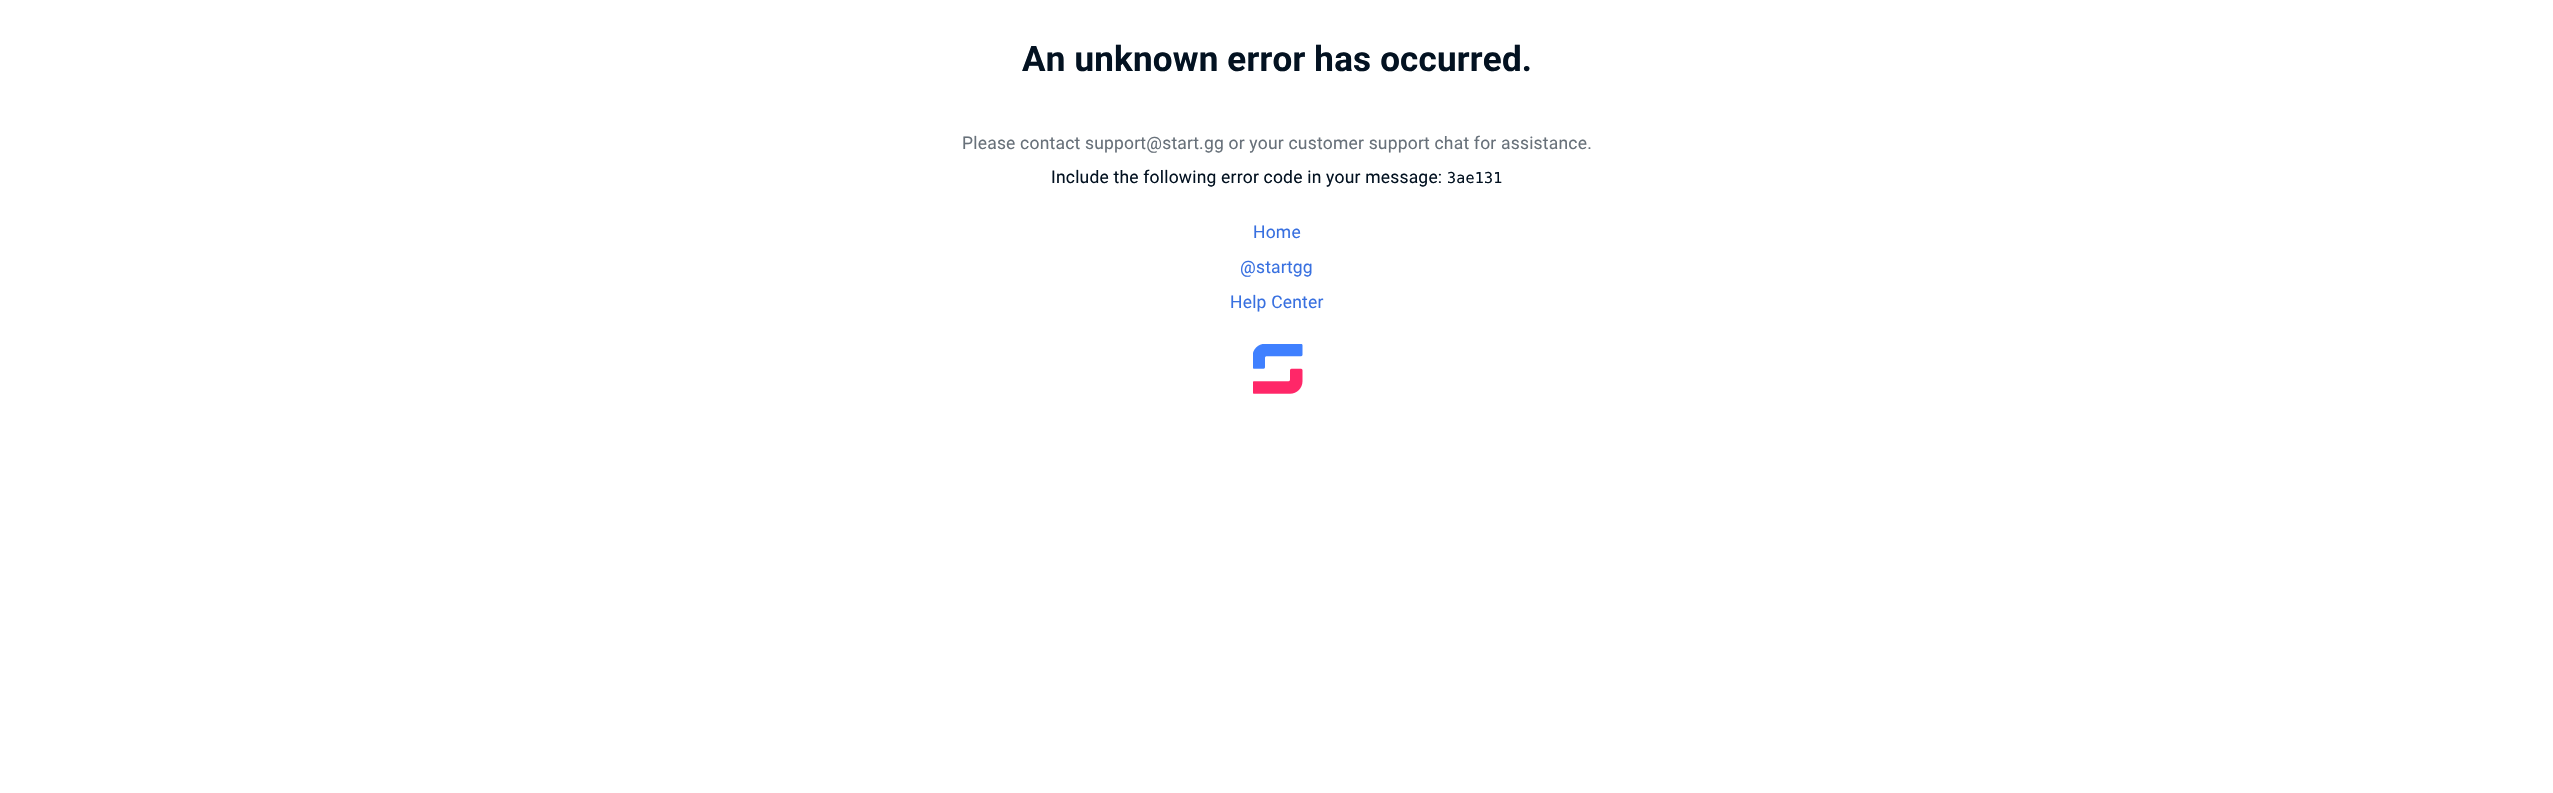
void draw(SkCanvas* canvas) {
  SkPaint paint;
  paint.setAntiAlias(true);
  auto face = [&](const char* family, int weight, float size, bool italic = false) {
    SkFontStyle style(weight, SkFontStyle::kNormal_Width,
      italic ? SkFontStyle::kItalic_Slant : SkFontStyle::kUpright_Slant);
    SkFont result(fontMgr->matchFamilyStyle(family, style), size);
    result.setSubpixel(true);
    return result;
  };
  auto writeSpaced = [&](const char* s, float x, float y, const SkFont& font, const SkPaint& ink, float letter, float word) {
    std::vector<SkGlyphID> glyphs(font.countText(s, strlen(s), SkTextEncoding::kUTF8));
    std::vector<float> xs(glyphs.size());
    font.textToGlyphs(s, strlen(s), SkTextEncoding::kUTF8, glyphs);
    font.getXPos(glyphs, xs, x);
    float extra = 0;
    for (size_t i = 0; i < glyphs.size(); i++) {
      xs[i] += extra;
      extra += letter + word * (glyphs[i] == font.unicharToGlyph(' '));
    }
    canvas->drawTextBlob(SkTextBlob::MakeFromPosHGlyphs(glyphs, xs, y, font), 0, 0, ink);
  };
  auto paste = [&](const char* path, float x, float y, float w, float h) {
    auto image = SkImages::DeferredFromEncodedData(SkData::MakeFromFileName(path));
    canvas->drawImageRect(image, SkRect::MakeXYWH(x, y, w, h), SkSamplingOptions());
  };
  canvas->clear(0xffffffff);
  paste("img/1.png", 1253, 344, 50, 50);
  auto f0 = face("Roboto", 700, 35);
  paint.setColor(0xff031221);
  writeSpaced("An unknown error has occurred.", 1022, 71, f0, paint, 0.2f, 0);
  auto f1 = face("Roboto", 400, 17.5f);
  paint.setColor(0xff68717a);
  writeSpaced("Please contact support@start.gg or your customer support chat for assistance.", 962, 149, f1, paint, 0.2f, 0);
  paint.setColor(0xff031221);
  writeSpaced("Include the following error code in your message:", 1051, 183, f1, paint, 0.2f, 0);
  auto f2 = face("DejaVu Sans Mono", 400, 15);
  writeSpaced("3ae131", 1447, 183, f2, paint, 0.2f, 0);
  paint.setColor(0xff3870e0);
  {
    const struct { const char* s; float x, y; } items[] = {
      {"Home", 1253, 238},
      {"@startgg", 1240, 273},
      {"Help Center", 1230, 308},
    };
    for (auto [s, x, y] : items) {
      writeSpaced(s, x, y, f1, paint, 0.2f, 0);
    }
  }
}
